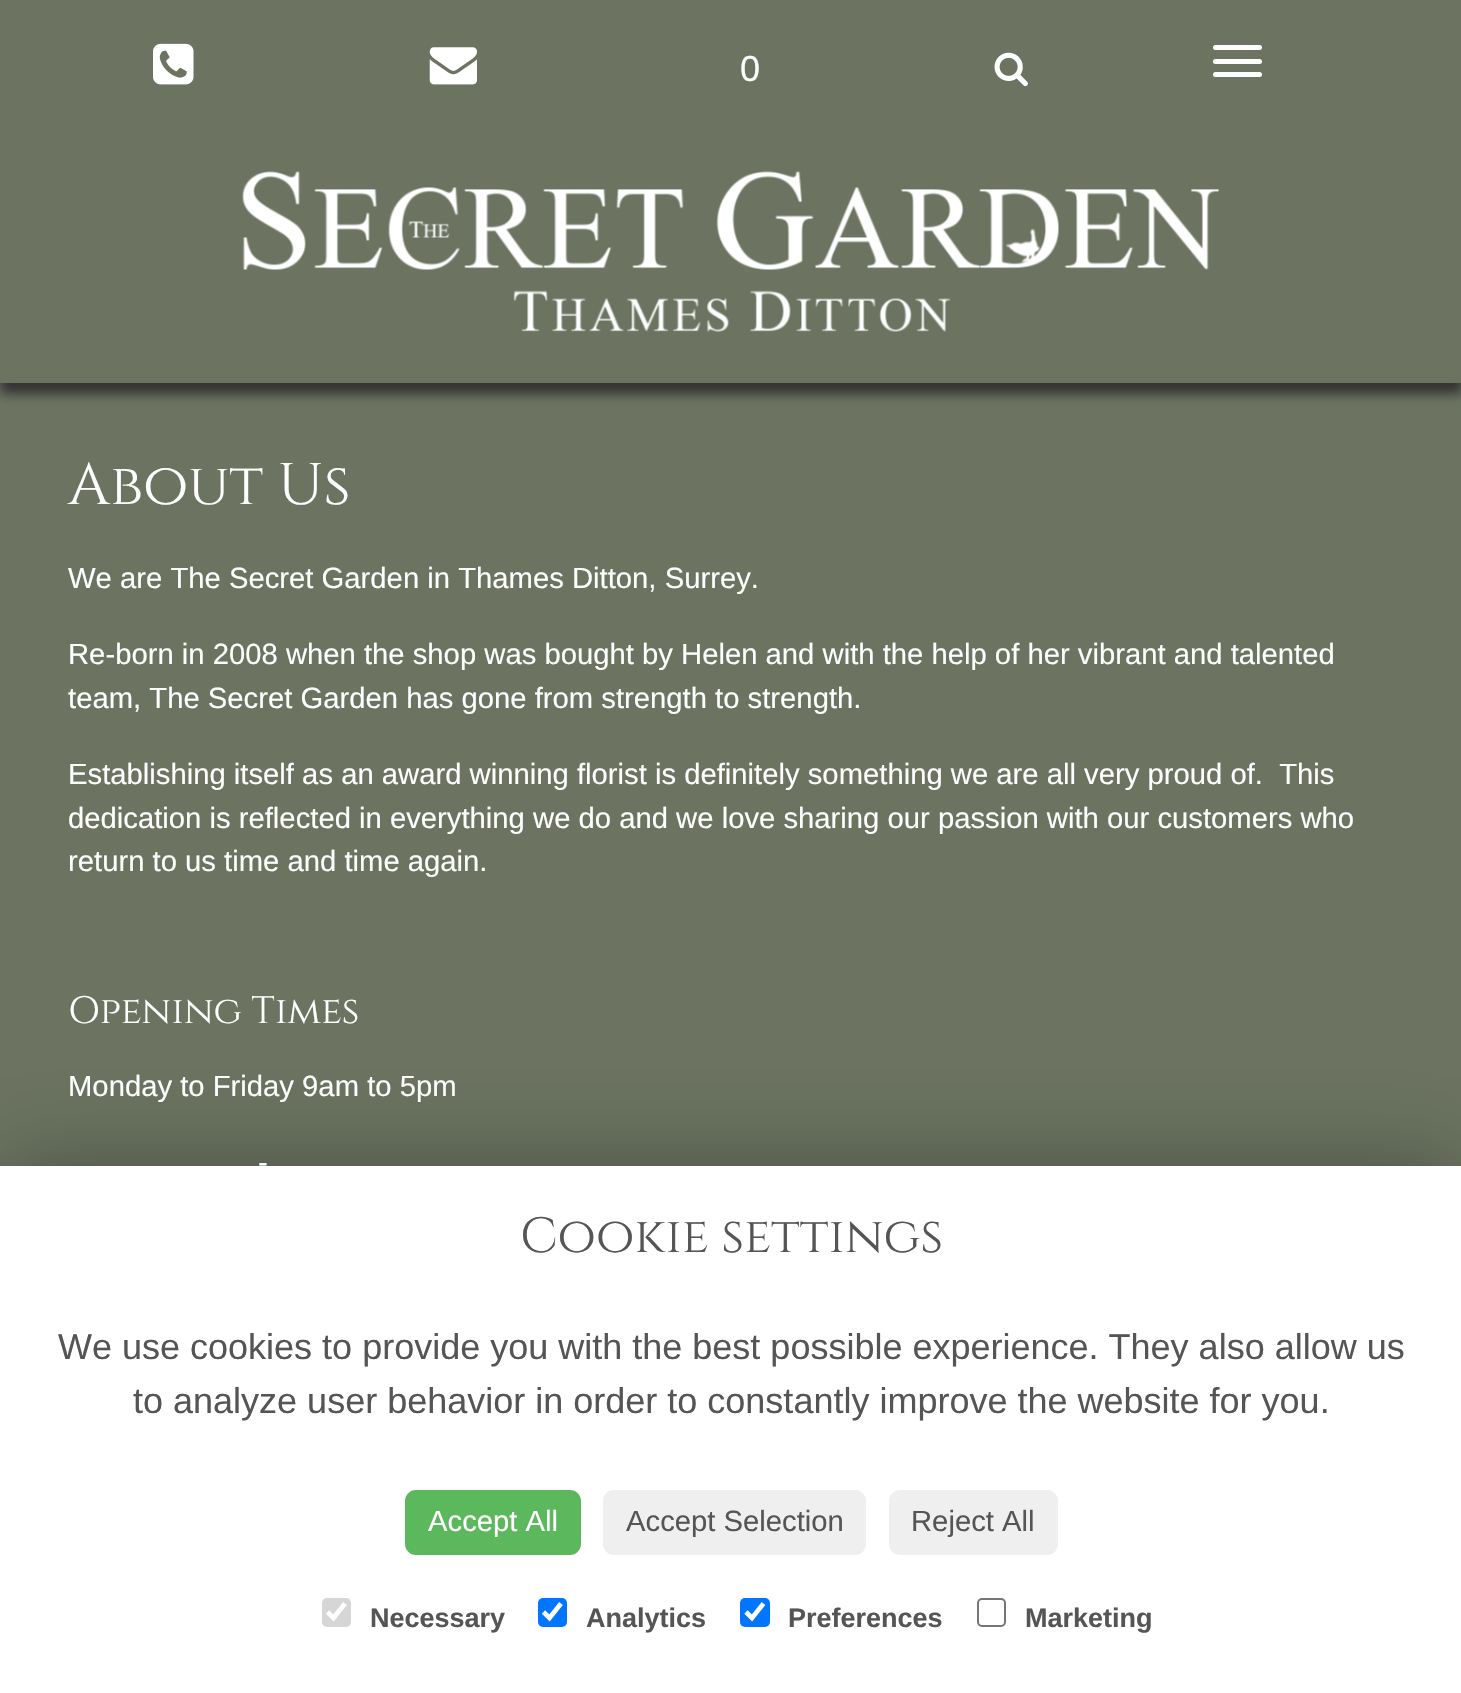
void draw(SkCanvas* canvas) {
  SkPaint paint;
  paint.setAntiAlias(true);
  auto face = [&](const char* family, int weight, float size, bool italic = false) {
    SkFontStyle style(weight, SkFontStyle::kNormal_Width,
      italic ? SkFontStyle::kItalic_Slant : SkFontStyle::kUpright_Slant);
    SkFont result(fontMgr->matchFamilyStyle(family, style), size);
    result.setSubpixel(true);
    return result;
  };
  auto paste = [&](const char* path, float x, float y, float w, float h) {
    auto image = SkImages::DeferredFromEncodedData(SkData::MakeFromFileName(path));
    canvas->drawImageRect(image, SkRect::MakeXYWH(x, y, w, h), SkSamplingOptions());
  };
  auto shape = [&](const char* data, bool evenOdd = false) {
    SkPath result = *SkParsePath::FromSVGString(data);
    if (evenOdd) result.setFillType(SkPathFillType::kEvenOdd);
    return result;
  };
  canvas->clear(0xff6c7461);
  paint.setColor(0xff333333);
  paint.setMaskFilter(SkMaskFilter::MakeBlur(kNormal_SkBlurStyle, 5.5f));
  canvas->drawRect(SkRect::MakeXYWH(0, 11, 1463, 383), paint);
  paint.setMaskFilter(nullptr);
  paint.setColor(0xff6c7461);
  canvas->drawRect(SkRect::MakeXYWH(0, 1, 1461, 382), paint);
  paste("img/1.png", 242, 171, 978, 161);
  paste("img/2.png", 153, 43, 41, 42);
  paste("img/3.png", 429, 47, 48, 38);
  paste("img/4.png", 994, 52, 34, 35);
  paint.setColor(0xffffffff);
  canvas->drawRoundRect(SkRect::MakeXYWH(1213, 45, 49, 5), 2.5f, 2.5f, paint);
  canvas->drawRoundRect(SkRect::MakeXYWH(1213, 59, 49, 5), 2.5f, 2.5f, paint);
  canvas->drawRoundRect(SkRect::MakeXYWH(1213, 72, 49, 5), 2.5f, 2.5f, paint);
  paint.setColor(0x4f000000);
  paint.setMaskFilter(SkMaskFilter::MakeBlur(kNormal_SkBlurStyle, 45));
  canvas->drawRect(SkRect::MakeXYWH(0, 1166, 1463, 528), paint);
  paint.setMaskFilter(nullptr);
  paint.setColor(0xffffffff);
  canvas->drawRect(SkRect::MakeXYWH(0, 1166, 1461, 527), paint);
  paint.setColor(0xff5cb85c);
  canvas->drawRoundRect(SkRect::MakeXYWH(405, 1490, 176, 65), 11, 11, paint);
  paint.setColor(0xffefefef);
  canvas->drawRoundRect(SkRect::MakeXYWH(603, 1490, 263, 65), 11, 11, paint);
  canvas->drawRoundRect(SkRect::MakeXYWH(889, 1490, 169, 65), 11, 11, paint);
  paint.setColor(0xffd6d6d6);
  canvas->drawRoundRect(SkRect::MakeXYWH(322, 1598, 29, 29), 5, 5, paint);
  paint.setStroke(true);
  paint.setStrokeWidth(4.7f);
  paint.setColor(0xffffffff);
  canvas->drawPath(shape("M327.5 1612L333.5 1618L345 1603.5"), paint);
  paint.setStroke(false);
  paint.setColor(0xff0075ff);
  canvas->drawRoundRect(SkRect::MakeXYWH(538, 1598, 29, 29), 5, 5, paint);
  paint.setStroke(true);
  paint.setColor(0xffffffff);
  canvas->drawPath(shape("M543.5 1612L549.5 1618L561 1603.5"), paint);
  paint.setStroke(false);
  paint.setColor(0xff0075ff);
  canvas->drawRoundRect(SkRect::MakeXYWH(740, 1598, 30, 29), 5, 5, paint);
  paint.setStroke(true);
  paint.setColor(0xffffffff);
  canvas->drawPath(shape("M746 1612L752 1618L763.5 1603.5"), paint);
  paint.setStrokeWidth(2);
  paint.setColor(0xff767676);
  canvas->drawRoundRect(SkRect::MakeXYWH(978, 1599, 27, 27), 4, 4, paint);
  auto f0 = face("Liberation Sans", 400, 36);
  paint.setStroke(false);
  paint.setColor(0xffffffff);
  canvas->drawString("0", 740, 81, f0, paint);
  auto f1 = face("Cinzel", 400, 58.5f);
  canvas->drawString("About Us", 68, 504, f1, paint);
  auto f2 = face("Liberation Sans", 400, 29.25f);
  {
    const struct { const char* s; float x, y; } items[] = {
      {"We are The Secret Garden in Thames Ditton, Surrey.", 68, 588},
      {"Re-born in 2008 when the shop was bought by Helen and with the help of her vibrant and talented", 68, 664},
      {"team, The Secret Garden has gone from strength to strength.", 68, 708},
      {"Establishing itself as an award winning florist is definitely something we are all very proud of.  This", 68, 784},
      {"dedication is reflected in everything we do and we love sharing our passion with our customers who", 68, 828},
      {"return to us time and time again.", 68, 871},
    };
    for (auto [s, x, y] : items) {
      canvas->drawString(s, x, y, f2, paint);
    }
  }
  auto f3 = face("Cinzel", 400, 38);
  canvas->drawString("Opening Times", 68, 1023, f3, paint);
  canvas->drawString("Monday to Friday 9am to 5pm", 68, 1096, f2, paint);
  canvas->drawString("-", 258, 1172, f2, paint);
  auto f4 = face("Cinzel", 400, 49.5f);
  paint.setColor(0xff555555);
  canvas->drawString("Cookie settings", 520, 1252, f4, paint);
  canvas->drawString("We use cookies to provide you with the best possible experience. They also allow us", 58, 1359, f0, paint);
  canvas->drawString("to analyze user behavior in order to constantly improve the website for you.", 133, 1413, f0, paint);
  paint.setColor(0xffffffff);
  canvas->drawString("Accept All", 428, 1531, f2, paint);
  paint.setColor(0xff555555);
  canvas->drawString("Accept Selection", 626, 1531, f2, paint);
  canvas->drawString("Reject All", 911, 1531, f2, paint);
  auto f5 = face("Liberation Sans", 700, 27);
  {
    const struct { const char* s; float x, y; } items[] = {
      {"Necessary", 370, 1627},
      {"Analytics", 586, 1627},
      {"Preferences", 788, 1627},
      {"Marketing", 1025, 1627},
    };
    for (auto [s, x, y] : items) {
      canvas->drawString(s, x, y, f5, paint);
    }
  }
}
